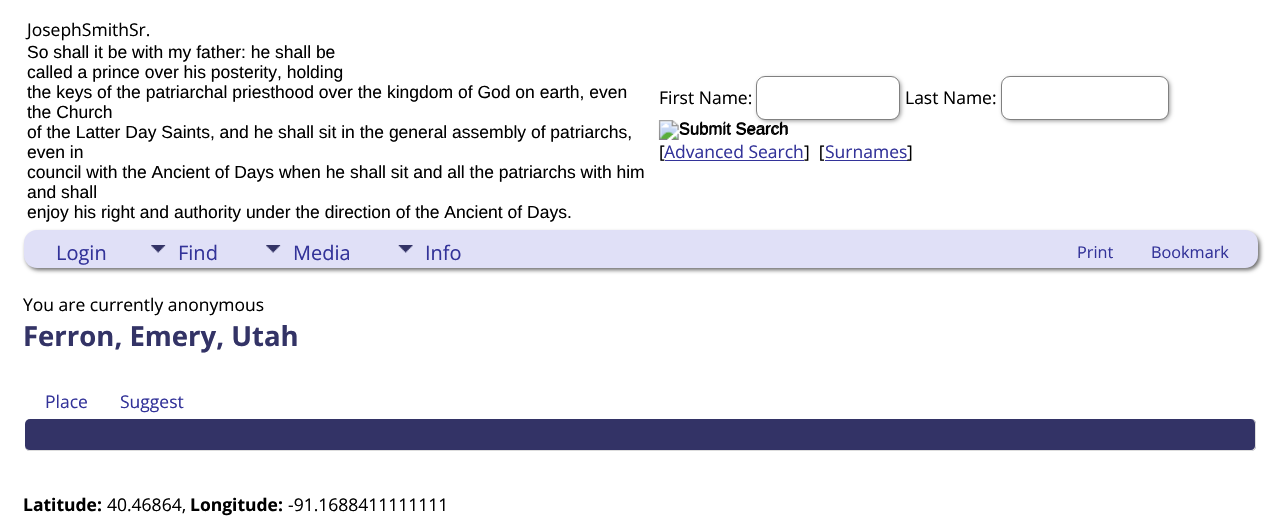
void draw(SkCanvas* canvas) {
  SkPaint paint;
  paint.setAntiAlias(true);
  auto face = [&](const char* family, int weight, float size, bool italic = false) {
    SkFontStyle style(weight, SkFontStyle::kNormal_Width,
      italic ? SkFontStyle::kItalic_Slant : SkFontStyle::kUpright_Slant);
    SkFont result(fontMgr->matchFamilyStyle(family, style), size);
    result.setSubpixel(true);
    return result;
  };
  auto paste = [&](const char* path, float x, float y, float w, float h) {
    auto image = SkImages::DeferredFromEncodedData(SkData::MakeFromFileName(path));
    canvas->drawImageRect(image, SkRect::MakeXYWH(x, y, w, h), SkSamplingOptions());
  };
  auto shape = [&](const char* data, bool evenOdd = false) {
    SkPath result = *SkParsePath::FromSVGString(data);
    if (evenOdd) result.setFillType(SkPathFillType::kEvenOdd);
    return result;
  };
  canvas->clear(0xffffffff);
  paint.setColor(0xff999999);
  paint.setMaskFilter(SkMaskFilter::MakeBlur(kNormal_SkBlurStyle, 2));
  canvas->drawRoundRect(SkRect::MakeXYWH(758, 78, 143, 43), 9, 9, paint);
  paint.setMaskFilter(nullptr);
  paint.setColor(0xffffffff);
  canvas->drawRoundRect(SkRect::MakeXYWH(756.5f, 76.5f, 143, 43), 8.5f, 8.5f, paint);
  paint.setStroke(true);
  paint.setStrokeWidth(1);
  paint.setColor(0xff808080);
  canvas->drawRoundRect(SkRect::MakeXYWH(756.5f, 76.5f, 143, 43), 8.5f, 8.5f, paint);
  paint.setStroke(false);
  paint.setColor(0xff999999);
  paint.setMaskFilter(SkMaskFilter::MakeBlur(kNormal_SkBlurStyle, 2));
  canvas->drawRoundRect(SkRect::MakeXYWH(1003, 78, 167, 43), 9, 9, paint);
  paint.setMaskFilter(nullptr);
  paint.setColor(0xffffffff);
  canvas->drawRoundRect(SkRect::MakeXYWH(1001.5f, 76.5f, 167, 43), 8.5f, 8.5f, paint);
  paint.setStroke(true);
  paint.setColor(0xff808080);
  canvas->drawRoundRect(SkRect::MakeXYWH(1001.5f, 76.5f, 167, 43), 8.5f, 8.5f, paint);
  paste("img/1.png", 658, 120, 129, 20);
  paint.setStroke(false);
  paint.setColor(0xff333399);
  canvas->drawRect(SkRect::MakeXYWH(665, 160, 139, 1), paint);
  canvas->drawRect(SkRect::MakeXYWH(825, 160, 83, 1), paint);
  paint.setColor(0xff666666);
  paint.setMaskFilter(SkMaskFilter::MakeBlur(kNormal_SkBlurStyle, 2));
  canvas->drawRoundRect(SkRect::MakeXYWH(26, 233, 1234, 37), 13, 13, paint);
  paint.setMaskFilter(nullptr);
  paint.setColor(0xffe0e0f7);
  canvas->drawRoundRect(SkRect::MakeXYWH(24, 230, 1234, 38), 13, 13, paint);
  paste("img/2.png", 151, 245, 15, 8);
  paste("img/2.png", 266, 245, 15, 8);
  paste("img/3.png", 398, 245, 15, 8);
  paint.setColor(0xff333366);
  canvas->drawRoundRect(SkRect::MakeXYWH(25, 419, 1231, 32), 5, 5, paint);
  paint.setColor(0xffdddddd);
  canvas->drawPath(shape("M30 419H1251C1254 419 1256 421 1256 424V446C1256 449 1254 451 1251 451H30C27 451 25 449 25 446V424C25 421 27 419 30 419ZM30 419H1251C1253 419 1255 421 1255 424V446C1255 448 1253 450 1251 450H30C27 450 25 448 25 446V424C25 421 27 419 30 419Z", true), paint);
  auto f0 = face("Open Sans", 400, 17.5f);
  paint.setColor(0xff000000);
  canvas->drawString("JosephSmithSr.", 27, 36, f0, paint);
  auto f1 = face("Liberation Sans", 400, 17.5f);
  {
    const struct { const char* s; float x, y; } items[] = {
      {"So shall it be with my father: he shall be", 27, 58},
      {"called a prince over his posterity, holding", 27, 78},
      {"the keys of the patriarchal priesthood over the kingdom of God on earth, even", 27, 98},
      {"the Church", 27, 118},
      {"of the Latter Day Saints, and he shall sit in the general assembly of patriarchs,", 27, 138},
      {"even in", 27, 158},
      {"council with the Ancient of Days when he shall sit and all the patriarchs with him", 27, 178},
      {"and shall", 27, 198},
      {"enjoy his right and authority under the direction of the Ancient of Days.", 27, 218},
    };
    for (auto [s, x, y] : items) {
      canvas->drawString(s, x, y, f1, paint);
    }
  }
  canvas->drawString("First Name:", 659, 104, f0, paint);
  canvas->drawString("Last Name:", 905, 104, f0, paint);
  auto f2 = face("Liberation Sans", 400, 16.75f);
  canvas->drawString("Submit Search", 679, 134, f2, paint);
  canvas->drawString("[", 659, 158, f0, paint);
  paint.setColor(0xff333399);
  canvas->drawString("Advanced Search", 664, 158, f0, paint);
  paint.setColor(0xff000000);
  canvas->drawString("]  [", 804, 158, f0, paint);
  paint.setColor(0xff333399);
  canvas->drawString("Surnames", 825, 158, f0, paint);
  paint.setColor(0xff000000);
  canvas->drawString("]", 907, 158, f0, paint);
  auto f3 = face("Open Sans", 400, 20);
  paint.setColor(0xff333399);
  {
    const struct { const char* s; float x, y; } items[] = {
      {"Login", 56, 260},
      {"Find", 178, 260},
      {"Media", 293, 260},
      {"Info", 425, 260},
    };
    for (auto [s, x, y] : items) {
      canvas->drawString(s, x, y, f3, paint);
    }
  }
  auto f4 = face("Open Sans", 400, 16.25f);
  canvas->drawString("Print", 1077, 258, f4, paint);
  canvas->drawString("Bookmark", 1151, 258, f4, paint);
  paint.setColor(0xff000000);
  canvas->drawString("You are currently anonymous", 23, 311, f0, paint);
  auto f5 = face("Open Sans", 700, 27.5f);
  paint.setColor(0xff333366);
  canvas->drawString("Ferron, Emery, Utah", 23, 346, f5, paint);
  paint.setColor(0xff333399);
  canvas->drawString("Place", 45, 408, f0, paint);
  canvas->drawString("Suggest", 120, 408, f0, paint);
  auto f6 = face("Open Sans", 700, 17.5f);
  paint.setColor(0xff000000);
  canvas->drawString("Latitude:", 23, 511, f6, paint);
  canvas->drawString("40.46864,", 107, 511, f0, paint);
  canvas->drawString("Longitude:", 190, 511, f6, paint);
  canvas->drawString("-91.1688411111111", 288, 511, f0, paint);
}
